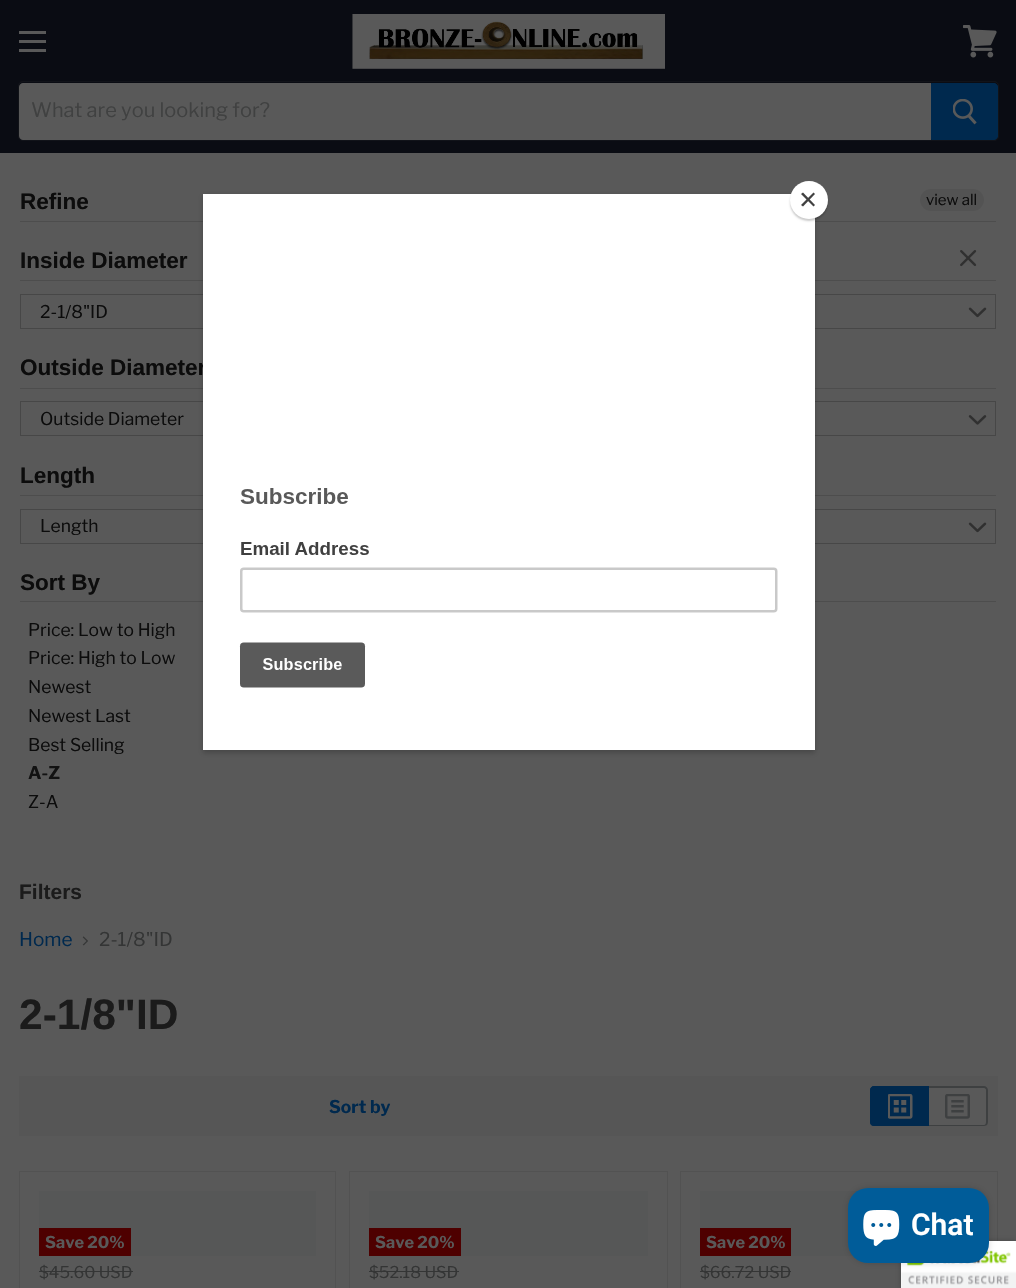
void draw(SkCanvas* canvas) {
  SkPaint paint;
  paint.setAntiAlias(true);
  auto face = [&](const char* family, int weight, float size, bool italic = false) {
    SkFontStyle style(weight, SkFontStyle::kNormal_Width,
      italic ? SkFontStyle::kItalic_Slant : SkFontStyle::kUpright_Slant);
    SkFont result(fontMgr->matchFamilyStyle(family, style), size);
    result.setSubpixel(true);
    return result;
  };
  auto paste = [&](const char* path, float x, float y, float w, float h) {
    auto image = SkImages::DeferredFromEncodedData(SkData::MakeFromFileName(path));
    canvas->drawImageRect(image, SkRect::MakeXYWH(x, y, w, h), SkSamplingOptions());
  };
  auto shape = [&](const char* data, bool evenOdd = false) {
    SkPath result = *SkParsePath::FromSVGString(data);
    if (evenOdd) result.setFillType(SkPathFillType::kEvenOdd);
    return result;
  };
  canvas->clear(0xff595959);
  {
    const struct { float x, y, w, h; SkColor color; } items[] = {
      {0, 0, 1016, 153, 0xff0a0c13},
      {19, 31, 27, 3, 0xff595959},
      {19, 40, 27, 3, 0xff595959},
      {19, 49, 27, 3, 0xff595959},
    };
    for (auto [x, y, w, h, color] : items) {
      paint.setColor(color);
      canvas->drawRect(SkRect::MakeXYWH(x, y, w, h), paint);
    }
  }
  paste("img/1.png", 963, 25, 34, 33);
  paste("img/2.png", 352, 14, 313, 55);
  paint.setStroke(true);
  paint.setStrokeWidth(1);
  paint.setColor(0x332c2c2c);
  canvas->drawRoundRect(SkRect::MakeXYWH(18.5f, 81.5f, 980, 59), 4.5f, 4.5f, paint);
  paint.setStroke(false);
  paint.setColor(0xff595959);
  canvas->drawPath(shape("M23 83H931V140H23C21 140 19 138 19 136V87C19 85 21 83 23 83Z"), paint);
  paint.setColor(0xff00294e);
  canvas->drawPath(shape("M931.5 83.5H994C996 83.5 997.5 85 997.5 87V136C997.5 138 996 139.5 994 139.5H931.5Z"), paint);
  paint.setStroke(true);
  canvas->drawPath(shape("M931.5 83.5H994C996 83.5 997.5 85 997.5 87V136C997.5 138 996 139.5 994 139.5H931.5Z"), paint);
  paste("img/3.png", 953, 99, 24, 26);
  paint.setStroke(false);
  paint.setColor(0xff4d4d4d);
  canvas->drawRect(SkRect::MakeXYWH(20, 221, 976, 1), paint);
  canvas->drawRect(SkRect::MakeXYWH(20, 280, 976, 1), paint);
  paint.setStroke(true);
  paint.setColor(0xff474747);
  canvas->drawRect(SkRect::MakeXYWH(20.5f, 294.5f, 975, 34), paint);
  paint.setStroke(false);
  paint.setColor(0xff4d4d4d);
  canvas->drawRect(SkRect::MakeXYWH(20, 388, 976, 1), paint);
  paint.setStroke(true);
  paint.setColor(0xff474747);
  canvas->drawRect(SkRect::MakeXYWH(20.5f, 401.5f, 975, 34), paint);
  paint.setStroke(false);
  paint.setColor(0xff4d4d4d);
  canvas->drawRect(SkRect::MakeXYWH(20, 495, 976, 1), paint);
  paint.setStroke(true);
  paint.setColor(0xff474747);
  canvas->drawRect(SkRect::MakeXYWH(20.5f, 509.5f, 975, 34), paint);
  paint.setStroke(false);
  paint.setColor(0xff4d4d4d);
  canvas->drawRect(SkRect::MakeXYWH(20, 601, 976, 1), paint);
  paint.setColor(0x33000000);
  paint.setMaskFilter(SkMaskFilter::MakeBlur(kNormal_SkBlurStyle, 2.5f));
  canvas->drawRect(SkRect::MakeXYWH(203, 196, 612, 557), paint);
  paint.setMaskFilter(nullptr);
  paint.setColor(0xff535353);
  canvas->drawRoundRect(SkRect::MakeXYWH(920, 189, 64, 22), 11, 11, paint);
  paste("img/5.png", 960, 250, 17, 17);
  paste("img/6.png", 968, 307, 19, 11);
  paste("img/7.png", 968, 415, 19, 10);
  paste("img/6.png", 968, 522, 19, 11);
  paste("img/8.png", 82, 936, 6, 10);
  paint.setColor(0xff565656);
  canvas->drawRect(SkRect::MakeXYWH(19, 1076, 979, 60), paint);
  paint.setColor(0xff00294e);
  canvas->drawPath(shape("M874 1086H929V1126H874C872 1126 870 1124 870 1122V1090C870 1088 872 1086 874 1086Z"), paint);
  canvas->drawPath(shape("M874 1086H929V1126H874C872 1126 870 1125 870 1122V1090C870 1088 872 1086 874 1086ZM874 1088H929V1125H874C872 1125 871 1124 871 1122V1090C871 1089 872 1088 874 1088Z", true), paint);
  paste("img/9.png", 888, 1094, 25, 25);
  paint.setColor(0xff595959);
  canvas->drawPath(shape("M929 1086H984C986 1086 988 1088 988 1090V1122C988 1124 986 1126 984 1126H929Z"), paint);
  paint.setColor(0xff3e4041);
  canvas->drawPath(shape("M929 1086H984C986 1086 988 1088 988 1090V1122C988 1125 986 1126 984 1126H929ZM929 1088H984C985 1088 986 1089 986 1090V1122C986 1124 985 1125 984 1125H929Z", true), paint);
  paste("img/10.png", 945, 1094, 25, 25);
  paint.setStroke(true);
  paint.setColor(0xff525252);
  canvas->drawRect(SkRect::MakeXYWH(19.5f, 1171.5f, 316, 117), paint);
  paint.setStroke(false);
  {
    const struct { float x, y, w, h; SkColor color; } items[] = {
      {39, 1191, 277, 65, 0xff565757},
      {39, 1228, 92, 28, 0xff4e0000},
      {39, 1271, 94, 1, 0xff343535},
    };
    for (auto [x, y, w, h, color] : items) {
      paint.setColor(color);
      canvas->drawRect(SkRect::MakeXYWH(x, y, w, h), paint);
    }
  }
  paint.setStroke(true);
  paint.setColor(0xff525252);
  canvas->drawRect(SkRect::MakeXYWH(349.5f, 1171.5f, 318, 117), paint);
  paint.setStroke(false);
  {
    const struct { float x, y, w, h; SkColor color; } items[] = {
      {369, 1191, 279, 65, 0xff565757},
      {369, 1228, 92, 28, 0xff4e0000},
      {369, 1271, 90, 1, 0xff343535},
    };
    for (auto [x, y, w, h, color] : items) {
      paint.setColor(color);
      canvas->drawRect(SkRect::MakeXYWH(x, y, w, h), paint);
    }
  }
  paint.setStroke(true);
  paint.setColor(0xff525252);
  canvas->drawRect(SkRect::MakeXYWH(680.5f, 1171.5f, 317, 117), paint);
  paint.setStroke(false);
  {
    const struct { float x, y, w, h; SkColor color; } items[] = {
      {700, 1191, 158, 65, 0xff565757},
      {700, 1228, 91, 28, 0xff4e0000},
      {700, 1271, 91, 1, 0xff343535},
    };
    for (auto [x, y, w, h, color] : items) {
      paint.setColor(color);
      canvas->drawRect(SkRect::MakeXYWH(x, y, w, h), paint);
    }
  }
  paint.setColor(0x33000000);
  paint.setMaskFilter(SkMaskFilter::MakeBlur(kNormal_SkBlurStyle, 3));
  canvas->drawRoundRect(SkRect::MakeXYWH(901, 1241, 115, 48), 2.5f, 2.5f, paint);
  paint.setMaskFilter(nullptr);
  paint.setColor(0xffffffff);
  canvas->drawRect(SkRect::MakeXYWH(901, 1241, 115, 47), paint);
  paste("img/12.png", 901, 1241, 115, 47);
  paint.setColor(0x26000000);
  paint.setMaskFilter(SkMaskFilter::MakeBlur(kNormal_SkBlurStyle, 3));
  canvas->drawRoundRect(SkRect::MakeXYWH(848, 1188, 141, 75), 20, 20, paint);
  paint.setMaskFilter(nullptr);
  paint.setColor(0xff005c99);
  canvas->drawRoundRect(SkRect::MakeXYWH(848, 1188, 141, 75), 20, 20, paint);
  paste("img/11.png", 863, 1210, 37, 36);
  auto f0 = face("Libre Franklin", 400, 20);
  paint.setColor(0xff404141);
  canvas->drawString("What are you looking for?", 31, 117, f0, paint);
  auto f1 = face("Arimo", 700, 22.5f);
  paint.setColor(0xff0c0c0c);
  canvas->drawString("Refine", 20, 209, f1, paint);
  auto f2 = face("Libre Franklin", 400, 15);
  canvas->drawString("view all", 926, 205, f2, paint);
  canvas->drawString("Inside Diameter", 20, 268, f1, paint);
  auto f3 = face("Libre Franklin", 400, 17.5f);
  canvas->drawString("2-1/8\"ID", 40, 318, f3, paint);
  canvas->drawString("Outside Diameter", 20, 375, f1, paint);
  paste("img/4.png", 203, 194, 612, 556);
  paint.setColor(0x33000000);
  paint.setMaskFilter(SkMaskFilter::MakeBlur(kNormal_SkBlurStyle, 1));
  canvas->drawRoundRect(SkRect::MakeXYWH(790, 184, 38, 37), 18.5f, 18.5f, paint);
  paint.setMaskFilter(nullptr);
  paint.setColor(0xffffffff);
  canvas->drawCircle(809, 200, 19, paint);
  paint.setColor(0xff414141);
  canvas->drawPath(shape("M813.5 192.5L815 194L803 206.5L801 205Z"), paint);
  canvas->drawPath(shape("M801 194L803 192.5L815 205L813.5 206.5Z"), paint);
  paint.setColor(0xff0c0c0c);
  canvas->drawString("Outside Diameter", 40, 425, f3, paint);
  canvas->drawString("Length", 20, 483, f1, paint);
  canvas->drawString("Length", 40, 532, f3, paint);
  canvas->drawString("Sort By", 20, 590, f1, paint);
  {
    const struct { const char* s; float x, y; } items[] = {
      {"Price: Low to High", 28, 636},
      {"Price: High to Low", 28, 664},
      {"Newest", 28, 693},
      {"Newest Last", 28, 722},
      {"Best Selling", 28, 751},
    };
    for (auto [s, x, y] : items) {
      canvas->drawString(s, x, y, f3, paint);
    }
  }
  auto f4 = face("Libre Franklin", 700, 17.5f);
  paint.setColor(0xff121212);
  canvas->drawString("A-Z", 28, 779, f4, paint);
  paint.setColor(0xff0c0c0c);
  canvas->drawString("Z-A", 28, 808, f3, paint);
  auto f5 = face("Arimo", 700, 21);
  paint.setColor(0xff1b1b1b);
  canvas->drawString("Filters", 19, 899, f5, paint);
  auto f6 = face("Libre Franklin", 400, 19);
  paint.setColor(0xff00294e);
  canvas->drawString("Home", 19, 946, f6, paint);
  paint.setColor(0xff343535);
  canvas->drawString("2-1/8\"ID", 99, 946, f6, paint);
  auto f7 = face("Arimo", 700, 42.5f);
  paint.setColor(0xff1b1b1b);
  canvas->drawString("2-1/8\"ID", 19, 1029, f7, paint);
  paint.setColor(0xff00294e);
  canvas->drawString("Sort by", 329, 1113, f4, paint);
  auto f8 = face("Libre Franklin", 700, 16.25f);
  paint.setColor(0xff595959);
  canvas->drawString("Save 20%", 45, 1248, f8, paint);
  auto f9 = face("Libre Franklin", 400, 16.25f);
  paint.setColor(0xff343535);
  canvas->drawString("$45.60 USD", 39, 1278, f9, paint);
  paint.setColor(0xff595959);
  canvas->drawString("Save 20%", 375, 1248, f8, paint);
  paint.setColor(0xff343535);
  canvas->drawString("$52.18 USD", 369, 1278, f9, paint);
  paint.setColor(0xff595959);
  canvas->drawString("Save 20%", 706, 1248, f8, paint);
  paint.setColor(0xff343535);
  canvas->drawString("$66.72 USD", 700, 1278, f9, paint);
  auto f10 = face("Roboto", 600, 30);
  paint.setColor(0xffffffff);
  canvas->drawString("Chat", 911, 1235, f10, paint);
}
